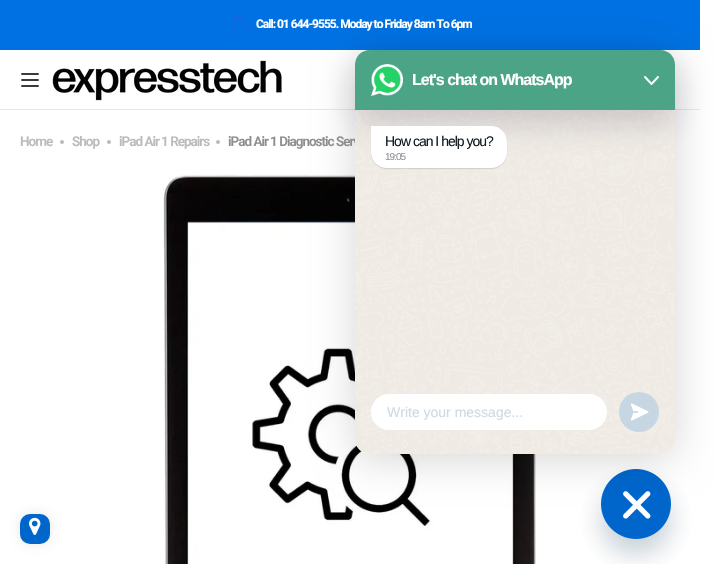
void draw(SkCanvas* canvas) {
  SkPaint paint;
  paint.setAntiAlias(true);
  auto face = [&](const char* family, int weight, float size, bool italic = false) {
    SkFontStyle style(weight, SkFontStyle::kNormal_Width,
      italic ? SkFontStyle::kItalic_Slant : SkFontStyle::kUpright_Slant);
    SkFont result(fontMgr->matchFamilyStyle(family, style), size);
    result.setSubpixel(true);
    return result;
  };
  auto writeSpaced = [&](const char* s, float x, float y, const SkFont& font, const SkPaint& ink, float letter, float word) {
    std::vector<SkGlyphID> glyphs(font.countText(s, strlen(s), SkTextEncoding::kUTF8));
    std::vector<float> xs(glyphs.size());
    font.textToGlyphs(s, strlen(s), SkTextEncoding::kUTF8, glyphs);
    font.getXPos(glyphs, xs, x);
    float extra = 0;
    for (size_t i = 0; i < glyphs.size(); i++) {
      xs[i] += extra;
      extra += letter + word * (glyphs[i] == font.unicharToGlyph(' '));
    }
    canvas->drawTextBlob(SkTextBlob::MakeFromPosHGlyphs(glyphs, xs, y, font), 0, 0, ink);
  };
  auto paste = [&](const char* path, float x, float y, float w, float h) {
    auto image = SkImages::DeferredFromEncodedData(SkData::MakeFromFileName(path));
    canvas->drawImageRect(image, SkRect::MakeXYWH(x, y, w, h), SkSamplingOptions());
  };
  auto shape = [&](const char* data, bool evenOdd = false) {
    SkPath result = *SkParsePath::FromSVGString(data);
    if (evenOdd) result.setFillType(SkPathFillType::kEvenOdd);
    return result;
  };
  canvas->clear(0xffffffff);
  paint.setColor(0xff0071e3);
  canvas->drawRect(SkRect::MakeXYWH(0, 0, 700, 50), paint);
  paste("img/1.png", 233, 16, 12, 18);
  paste("img/2.png", 21, 73, 18, 14);
  paste("img/3.png", 52, 60, 230, 41);
  paint.setColor(0xffe6e8e9);
  canvas->drawRect(SkRect::MakeXYWH(0, 109, 700, 1), paint);
  paint.setColor(0xffbbbbbc);
  canvas->drawCircle(62, 142, 2, paint);
  canvas->drawCircle(109, 142, 2, paint);
  canvas->drawCircle(218, 142, 2, paint);
  paste("img/4.png", 163, 174, 373, 390);
  paint.setColor(0x2949687e);
  paint.setMaskFilter(SkMaskFilter::MakeBlur(kNormal_SkBlurStyle, 12));
  canvas->drawRoundRect(SkRect::MakeXYWH(601, 485, 70, 70), 35, 35, paint);
  paint.setMaskFilter(nullptr);
  paste("img/9.png", 601, 469, 70, 70);
  paint.setColor(0x29000000);
  paint.setMaskFilter(SkMaskFilter::MakeBlur(kNormal_SkBlurStyle, 20));
  canvas->drawRoundRect(SkRect::MakeXYWH(355, 55, 320, 404), 15, 15, paint);
  paint.setMaskFilter(nullptr);
  paint.setColor(0xff5a5a5a);
  paint.setMaskFilter(SkMaskFilter::MakeBlur(kNormal_SkBlurStyle, 9));
  canvas->drawRoundRect(SkRect::MakeXYWH(29, 523, 12, 12), 1, 1, paint);
  paint.setMaskFilter(nullptr);
  paint.setColor(0xff0066cc);
  canvas->drawRoundRect(SkRect::MakeXYWH(20, 514, 30, 30), 10, 10, paint);
  paste("img/8.png", 29, 517, 12, 18);
  canvas->save();
  canvas->clipPath(shape("M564 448H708V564H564ZM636 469C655.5 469 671 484.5 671 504C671 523.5 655.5 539 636 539C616.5 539 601 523.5 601 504C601 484.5 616.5 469 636 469Z", true), true);
  paint.setColor(0x2949687e);
  paint.setMaskFilter(SkMaskFilter::MakeBlur(kNormal_SkBlurStyle, 12));
  canvas->drawRoundRect(SkRect::MakeXYWH(601, 485, 70, 70), 35, 35, paint);
  paint.setMaskFilter(nullptr);
  canvas->restore();
  auto f0 = face("Roboto", 700, 12);
  paint.setColor(0xffffffff);
  writeSpaced("Call: 01 644-9555. Moday to Friday 8am To 6pm", 256, 28, f0, paint, -1, 0);
  auto f1 = face("Roboto", 600, 13.5f);
  paint.setColor(0xffbbbbbc);
  {
    const struct { const char* s; float x, y; } items[] = {
      {"Home", 20, 146},
      {"Shop", 72, 146},
      {"iPad Air 1 Repairs", 119, 146},
    };
    for (auto [s, x, y] : items) {
      writeSpaced(s, x, y, f1, paint, -1, 0);
    }
  }
  paint.setColor(0xff8e8e8f);
  writeSpaced("iPad Air 1 Diagnostic Serv", 228, 146, f1, paint, -1, 0);
  paint.setColor(0xffffffff);
  canvas->drawRoundRect(SkRect::MakeXYWH(355, 50, 320, 404), 15, 15, paint);
  paste("img/5.png", 355, 50, 320, 404);
  paint.setColor(0x291a0e35);
  paint.setMaskFilter(SkMaskFilter::MakeBlur(kNormal_SkBlurStyle, 16));
  canvas->drawRoundRect(SkRect::MakeXYWH(355, 66, 320, 60), 15, 15, paint);
  paint.setMaskFilter(nullptr);
  paint.setColor(0xff4aa485);
  canvas->drawPath(shape("M370 50H660C668.5 50 675 56.5 675 65V110H355V65C355 56.5 361.5 50 370 50Z"), paint);
  paste("img/6.png", 371, 64, 32, 32);
  auto f2 = face("Liberation Sans", 700, 16);
  paint.setColor(0xffffffff);
  writeSpaced("Let's chat on WhatsApp", 412, 85, f2, paint, -1, 0);
  paint.setStroke(true);
  paint.setStrokeWidth(2);
  paint.setStrokeCap(SkPaint::kRound_Cap);
  paint.setStrokeJoin(SkPaint::kRound_Join);
  canvas->drawPath(shape("M645 77L651.5 84L658 77"), paint);
  paint.setStroke(false);
  paint.setColor(0x21000000);
  paint.setMaskFilter(SkMaskFilter::MakeBlur(kNormal_SkBlurStyle, 0.5f));
  canvas->drawRoundRect(SkRect::MakeXYWH(371, 127, 136, 42), 16, 16, paint);
  paint.setMaskFilter(nullptr);
  paint.setColor(0xffffffff);
  canvas->drawPath(shape("M371 126H491C500 126 507 133 507 142V152C507 161 500 168 491 168H387C378 168 371 161 371 152Z"), paint);
  auto f3 = face("Liberation Sans", 400, 14);
  paint.setColor(0xff111b21);
  writeSpaced("How can I help you?", 385, 146, f3, paint, -1, 0);
  auto f4 = face("Liberation Sans", 400, 10);
  paint.setColor(0xff93939d);
  writeSpaced("19:05", 385, 160, f4, paint, -1, 0);
  paint.setColor(0xffffffff);
  canvas->drawRoundRect(SkRect::MakeXYWH(371, 394, 236, 36), 18, 18, paint);
  paint.setColor(0xffcedae3);
  canvas->drawString("Write your message...", 387, 417, f3, paint);
  paint.setColor(0xffc6d7e3);
  canvas->drawCircle(639, 412, 20, paint);
  paste("img/7.png", 630, 403, 19, 18);
}
